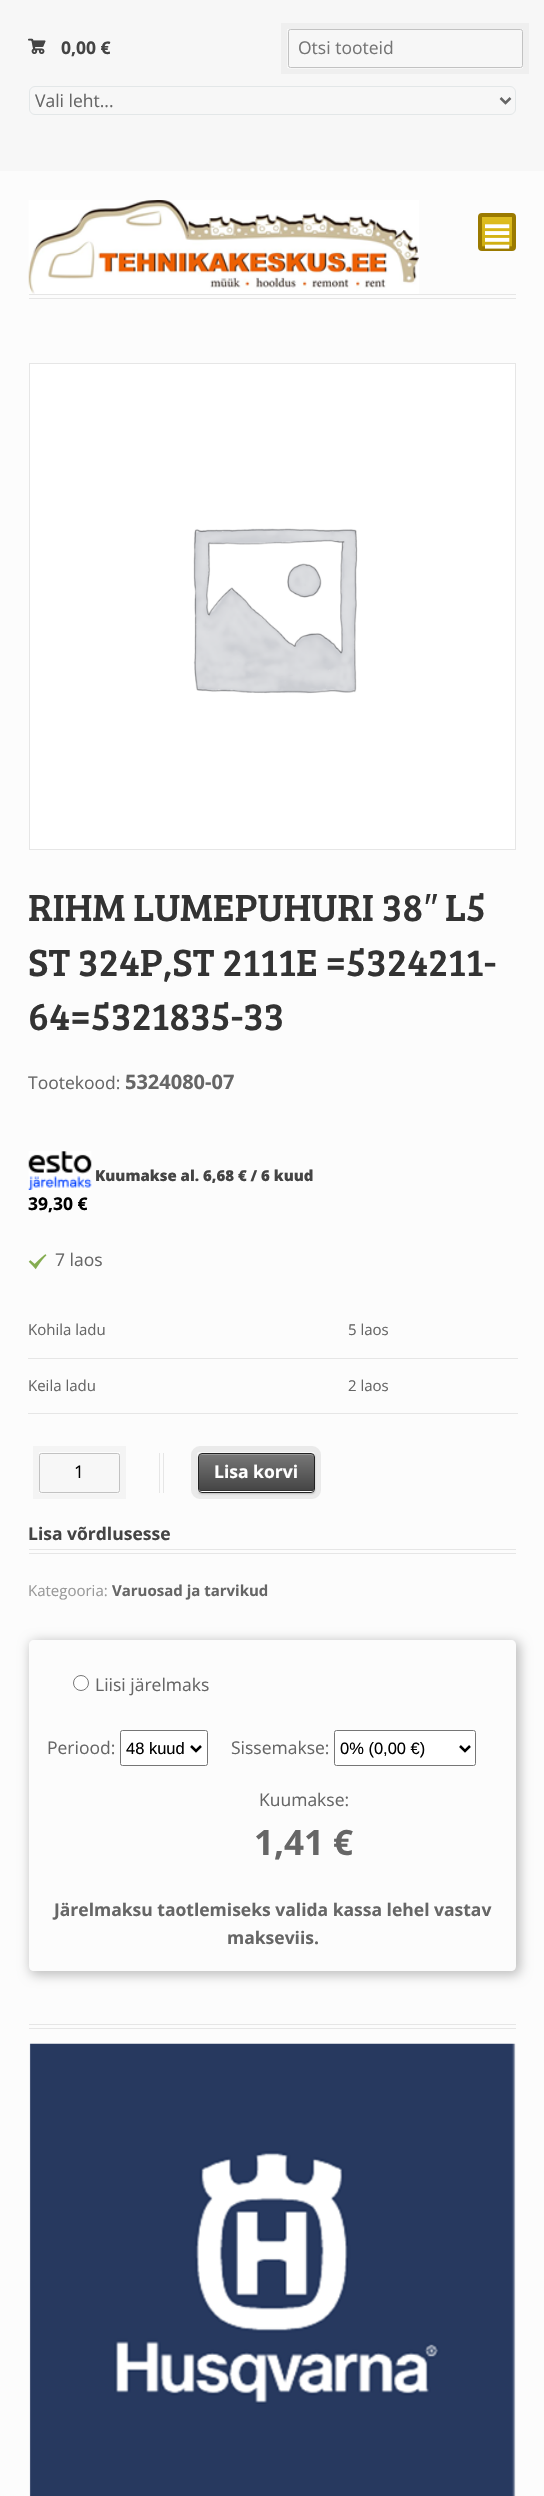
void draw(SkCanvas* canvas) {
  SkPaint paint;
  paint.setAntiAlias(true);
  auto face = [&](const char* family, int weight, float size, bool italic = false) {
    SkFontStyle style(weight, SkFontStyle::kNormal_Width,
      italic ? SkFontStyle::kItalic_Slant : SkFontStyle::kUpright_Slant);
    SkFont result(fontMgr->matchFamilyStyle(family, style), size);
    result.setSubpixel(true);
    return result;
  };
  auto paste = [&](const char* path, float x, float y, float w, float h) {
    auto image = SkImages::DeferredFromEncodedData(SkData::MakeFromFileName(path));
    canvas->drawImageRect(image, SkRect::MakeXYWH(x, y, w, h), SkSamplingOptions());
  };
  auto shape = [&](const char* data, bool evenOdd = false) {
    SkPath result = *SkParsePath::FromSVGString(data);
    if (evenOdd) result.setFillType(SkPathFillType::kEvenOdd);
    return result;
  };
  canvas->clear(0xfffcfcfc);
  paint.setColor(0xfff7f7f7);
  canvas->drawRect(SkRect::MakeXYWH(0, 0, 544, 171), paint);
  paint.setColor(0xffffffff);
  canvas->drawPath(shape("M288 67C288 68 289 69 290 69H520C522 69 523 68 523 66V32L522 31V65C522 67 522 68 520 68H290Z"), paint);
  paint.setStroke(true);
  paint.setStrokeWidth(6);
  paint.setColor(0x08000000);
  canvas->drawRect(SkRect::MakeXYWH(284, 26, 242, 45), paint);
  paint.setStroke(false);
  paint.setColor(0xfff7f7f7);
  canvas->drawRoundRect(SkRect::MakeXYWH(288.5f, 29.5f, 234, 38), 2, 2, paint);
  paint.setStroke(true);
  paint.setStrokeWidth(1);
  paint.setColor(0xffc2c2c2);
  canvas->drawRoundRect(SkRect::MakeXYWH(288.5f, 29.5f, 234, 38), 2, 2, paint);
  paint.setColor(0xffe3e7e8);
  canvas->drawRoundRect(SkRect::MakeXYWH(29.5f, 86.5f, 486, 28), 5.5f, 5.5f, paint);
  paint.setStrokeWidth(2.5f);
  paint.setColor(0xff666666);
  canvas->drawPath(shape("M500.5 98L505.5 103L510.5 98"), paint);
  paint.setStroke(false);
  paint.setColor(0xffe6e6e6);
  canvas->drawRect(SkRect::MakeXYWH(29, 294, 487, 1), paint);
  canvas->drawRect(SkRect::MakeXYWH(29, 298, 487, 1), paint);
  paste("img/1.png", 28, 200, 391, 94);
  {
    const SkColor colors[] = {0xffdfbe20, 0xffcead0f};
    const float stops[] = {0, 1};
    const SkPoint ends[] = {{497, 216}, {497, 248}};
    paint.setShader(SkGradientShader::MakeLinear(ends, colors, stops, 2, SkTileMode::kClamp));
    paint.setAlpha(255);
  }
  canvas->drawRect(SkRect::MakeXYWH(482, 217, 30, 29), paint);
  paint.setShader(nullptr);
  paint.setColor(0xffac8b00);
  canvas->drawRect(SkRect::MakeXYWH(481, 246, 32, 1), paint);
  paint.setStroke(true);
  paint.setStrokeWidth(4);
  paint.setColor(0xff9b7a00);
  canvas->drawRoundRect(SkRect::MakeXYWH(480, 215, 34, 34), 2, 2, paint);
  paste("img/2.png", 485, 224, 25, 25);
  paint.setStroke(false);
  paint.setColor(0xffffffff);
  canvas->drawRect(SkRect::MakeXYWH(29.5f, 363.5f, 486, 486), paint);
  paint.setStroke(true);
  paint.setStrokeWidth(1);
  paint.setColor(0xffe6e6e6);
  canvas->drawRect(SkRect::MakeXYWH(29.5f, 363.5f, 486, 486), paint);
  paste("img/3.png", 193, 528, 165, 166);
  paste("img/4.png", 28, 1151, 64, 39);
  paste("img/5.png", 28, 1254, 19, 16);
  paint.setStroke(false);
  {
    const struct { float x, y, w, h; SkColor color; } items[] = {
      {28, 1358, 490, 1, 0xffe6e6e6},
      {28, 1413, 490, 1, 0xffe6e6e6},
      {159, 1453, 1, 40, 0xffe6e6e6},
      {163, 1453, 1, 40, 0xffe6e6e6},
    };
    for (auto [x, y, w, h, color] : items) {
      paint.setColor(color);
      canvas->drawRect(SkRect::MakeXYWH(x, y, w, h), paint);
    }
  }
  paint.setColor(0xffffffff);
  canvas->drawPath(shape("M39 1491V1493L41 1494H118L119 1493C120 1492 120 1491 120 1490C120 1492 119 1492 118 1492H41C40 1492 39 1492 39 1491Z"), paint);
  paint.setStroke(true);
  paint.setStrokeWidth(6);
  paint.setColor(0x08000000);
  canvas->drawRect(SkRect::MakeXYWH(36, 1449, 87, 47), paint);
  paint.setStroke(false);
  paint.setColor(0xfff7f7f7);
  canvas->drawRoundRect(SkRect::MakeXYWH(39.5f, 1453.5f, 80, 39), 2, 2, paint);
  paint.setStroke(true);
  paint.setStrokeWidth(1);
  paint.setColor(0xffc2c2c2);
  canvas->drawRoundRect(SkRect::MakeXYWH(39.5f, 1453.5f, 80, 39), 2, 2, paint);
  canvas->save();
  canvas->clipPath(shape("M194 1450H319V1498H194ZM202 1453H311C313 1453 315 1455 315 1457V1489C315 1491 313 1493 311 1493H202C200 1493 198 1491 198 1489V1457C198 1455 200 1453 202 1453Z", true), true);
  paint.setStroke(false);
  paint.setColor(0x33000000);
  paint.setMaskFilter(SkMaskFilter::MakeBlur(kNormal_SkBlurStyle, 1));
  canvas->drawRoundRect(SkRect::MakeXYWH(198, 1454, 117, 40), 4, 4, paint);
  paint.setMaskFilter(nullptr);
  canvas->restore();
  paint.setStroke(true);
  paint.setStrokeWidth(6);
  paint.setColor(0x12000000);
  canvas->drawRoundRect(SkRect::MakeXYWH(194, 1449, 124, 47), 6, 6, paint);
  paint.setStroke(false);
  {
    const SkColor colors[] = {0xff777777, 0xff444444};
    const float stops[] = {0, 1};
    const SkPoint ends[] = {{256, 1454}, {256, 1491}};
    paint.setShader(SkGradientShader::MakeLinear(ends, colors, stops, 2, SkTileMode::kClamp));
    paint.setAlpha(255);
  }
  canvas->drawRoundRect(SkRect::MakeXYWH(199, 1454, 115, 37), 2.5f, 2.5f, paint);
  paint.setShader(nullptr);
  paint.setColor(0xff333333);
  canvas->drawPath(shape("M199 1488C199 1490 200 1491 202 1491H312C313 1491 314 1490 314 1488C314 1489 313 1490 311 1490H201C200 1490 199 1489 199 1488Z"), paint);
  paint.setColor(0xff999999);
  canvas->drawPath(shape("M201 1455H311L314 1456V1457V1456C314 1455 313 1454 312 1454H202C200 1454 199 1455 199 1456V1457C199 1456 200 1455 201 1455Z"), paint);
  paint.setStroke(true);
  paint.setStrokeWidth(1);
  paint.setColor(0xff222222);
  canvas->drawRoundRect(SkRect::MakeXYWH(198.5f, 1453.5f, 116, 39), 3.5f, 3.5f, paint);
  paint.setStroke(false);
  paint.setColor(0xffe6e6e6);
  canvas->drawRect(SkRect::MakeXYWH(29, 1549, 487, 1), paint);
  canvas->drawRect(SkRect::MakeXYWH(29, 1553, 487, 1), paint);
  canvas->save();
  canvas->clipPath(shape("M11 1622H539V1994H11ZM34 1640H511C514 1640 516 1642 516 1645V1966C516 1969 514 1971 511 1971H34C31 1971 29 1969 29 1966V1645C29 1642 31 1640 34 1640Z", true), true);
  paint.setColor(0x40000000);
  paint.setMaskFilter(SkMaskFilter::MakeBlur(kNormal_SkBlurStyle, 6));
  canvas->drawRoundRect(SkRect::MakeXYWH(30, 1641, 490, 334), 6, 6, paint);
  paint.setMaskFilter(nullptr);
  canvas->restore();
  paint.setColor(0xffffffff);
  canvas->drawCircle(81, 1683, 7.5f, paint);
  paint.setStroke(true);
  paint.setColor(0xff767676);
  canvas->drawCircle(81, 1683, 7.5f, paint);
  paint.setStroke(false);
  paint.setColor(0xffffffff);
  canvas->drawRoundRect(SkRect::MakeXYWH(120.5f, 1730.5f, 87, 35), 2, 2, paint);
  paint.setStroke(true);
  paint.setColor(0xff767676);
  canvas->drawRoundRect(SkRect::MakeXYWH(120.5f, 1730.5f, 87, 35), 2, 2, paint);
  paint.setStrokeWidth(2.5f);
  paint.setColor(0xff000000);
  canvas->drawPath(shape("M191 1746L196 1751L201 1746"), paint);
  paint.setStroke(false);
  paint.setColor(0xffffffff);
  canvas->drawRoundRect(SkRect::MakeXYWH(334.5f, 1730.5f, 141, 35), 2, 2, paint);
  paint.setStroke(true);
  paint.setStrokeWidth(1);
  paint.setColor(0xff767676);
  canvas->drawRoundRect(SkRect::MakeXYWH(334.5f, 1730.5f, 141, 35), 2, 2, paint);
  paint.setStrokeWidth(2.5f);
  paint.setColor(0xff000000);
  canvas->drawPath(shape("M460 1746L465 1751L470 1746"), paint);
  paint.setStroke(false);
  paint.setColor(0xffe6e6e6);
  canvas->drawRect(SkRect::MakeXYWH(29, 2024, 487, 1), paint);
  canvas->drawRect(SkRect::MakeXYWH(29, 2028, 487, 1), paint);
  paste("img/6.png", 29, 2043, 487, 453);
  auto f0 = face("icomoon", 400, 17.5f);
  paint.setColor(0xff444444);
  canvas->drawString("£", 28, 54, f0, paint);
  auto f1 = face("Open Sans", 700, 17.5f);
  canvas->drawString("0,00 €", 61, 54, f1, paint);
  auto f2 = face("Open Sans", 400, 17.5f);
  paint.setColor(0xff757575);
  canvas->drawString("Otsi tooteid", 298, 54, f2, paint);
  paint.setColor(0xff666666);
  canvas->drawString("Vali leht...", 35, 107, f2, paint);
  auto f3 = face("Bree Serif", 400, 39.25f);
  paint.setColor(0xff333333);
  canvas->drawString("RIHM LUMEPUHURI 38", 28, 921, f3, paint);
  auto f4 = face("Liberation Sans", 400, 39.25f);
  canvas->drawString("″", 424, 921, f4, paint);
  {
    const struct { const char* s; float x, y; } items[] = {
      {"L5", 445, 921},
      {"ST 324P,ST 2111E =5324211-", 28, 976},
      {"64=5321835-33", 28, 1030},
    };
    for (auto [s, x, y] : items) {
      canvas->drawString(s, x, y, f3, paint);
    }
  }
  paint.setColor(0xff666666);
  canvas->drawString("Tootekood:", 28, 1089, f2, paint);
  auto f5 = face("Open Sans", 700, 20);
  canvas->drawString("5324080-07", 125, 1089, f5, paint);
  auto f6 = face("Open Sans", 800, 15);
  paint.setColor(0xff444444);
  canvas->drawString("Kuumakse al. 6,68 € / 6 kuud", 95, 1181, f6, paint);
  paint.setColor(0xff000000);
  canvas->drawString("39,30 €", 28, 1210, f1, paint);
  paint.setColor(0xff666666);
  canvas->drawString("7 laos", 55, 1266, f2, paint);
  auto f7 = face("Open Sans", 400, 15);
  {
    const struct { const char* s; float x, y; } items[] = {
      {"Kohila ladu", 28, 1335},
      {"5 laos", 348, 1335},
      {"Keila ladu", 28, 1391},
      {"2 laos", 348, 1391},
    };
    for (auto [s, x, y] : items) {
      canvas->drawString(s, x, y, f7, paint);
    }
  }
  paint.setColor(0xff000000);
  canvas->drawString("1", 74, 1478, f2, paint);
  paint.setColor(0xffffffff);
  canvas->drawString("Lisa korvi", 214, 1478, f1, paint);
  paint.setColor(0xff444444);
  canvas->drawString("Lisa võrdlusesse", 28, 1540, f1, paint);
  paint.setColor(0xff999999);
  canvas->drawString("Kategooria:", 28, 1596, f7, paint);
  auto f8 = face("Open Sans", 700, 15);
  paint.setColor(0xff666666);
  canvas->drawString("Varuosad ja tarvikud", 112, 1596, f8, paint);
  canvas->drawString("Liisi järelmaks", 95, 1691, f2, paint);
  canvas->drawString("Periood:", 47, 1754, f2, paint);
  auto f9 = face("Liberation Sans", 400, 16.5f);
  paint.setColor(0xff000000);
  canvas->drawString("48 kuud", 126, 1754, f9, paint);
  paint.setColor(0xff666666);
  canvas->drawString("Sissemakse:", 231, 1754, f2, paint);
  paint.setColor(0xff000000);
  canvas->drawString("0% (0,00 €)", 340, 1754, f9, paint);
  paint.setColor(0xff666666);
  canvas->drawString("Kuumakse:", 259, 1806, f2, paint);
  auto f10 = face("Open Sans", 700, 35);
  canvas->drawString("1,41 €", 254, 1855, f10, paint);
  canvas->drawString("Järelmaksu taotlemiseks valida kassa lehel vastav", 54, 1916, f1, paint);
  canvas->drawString("makseviis.", 227, 1944, f1, paint);
}
